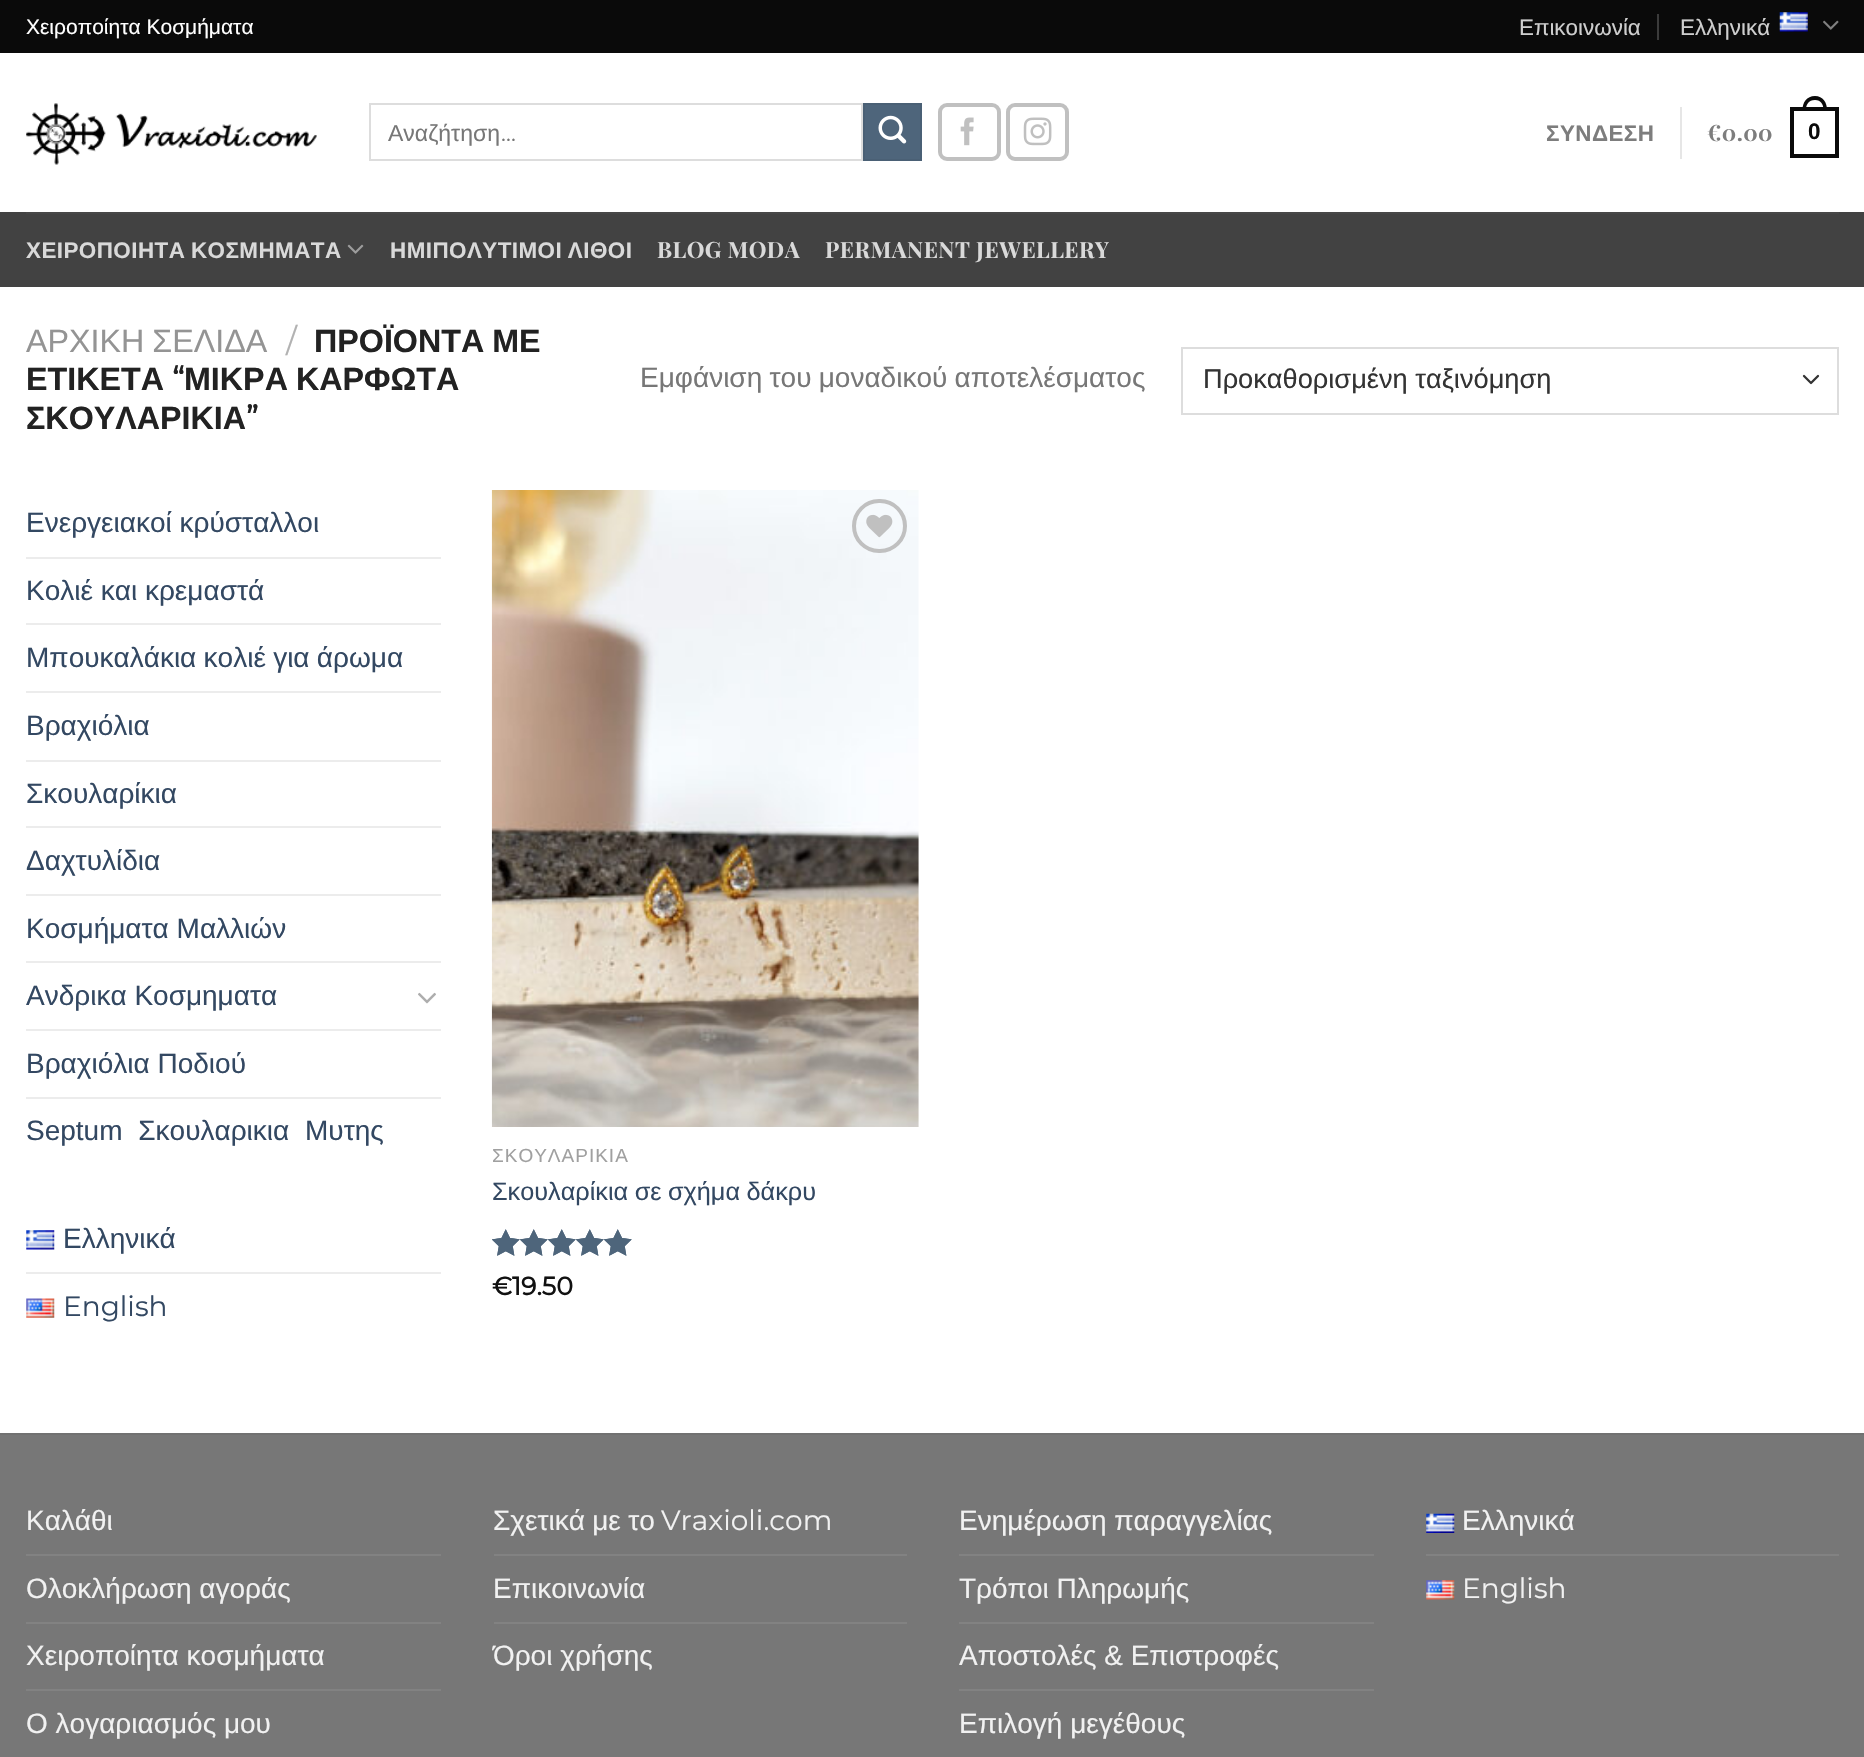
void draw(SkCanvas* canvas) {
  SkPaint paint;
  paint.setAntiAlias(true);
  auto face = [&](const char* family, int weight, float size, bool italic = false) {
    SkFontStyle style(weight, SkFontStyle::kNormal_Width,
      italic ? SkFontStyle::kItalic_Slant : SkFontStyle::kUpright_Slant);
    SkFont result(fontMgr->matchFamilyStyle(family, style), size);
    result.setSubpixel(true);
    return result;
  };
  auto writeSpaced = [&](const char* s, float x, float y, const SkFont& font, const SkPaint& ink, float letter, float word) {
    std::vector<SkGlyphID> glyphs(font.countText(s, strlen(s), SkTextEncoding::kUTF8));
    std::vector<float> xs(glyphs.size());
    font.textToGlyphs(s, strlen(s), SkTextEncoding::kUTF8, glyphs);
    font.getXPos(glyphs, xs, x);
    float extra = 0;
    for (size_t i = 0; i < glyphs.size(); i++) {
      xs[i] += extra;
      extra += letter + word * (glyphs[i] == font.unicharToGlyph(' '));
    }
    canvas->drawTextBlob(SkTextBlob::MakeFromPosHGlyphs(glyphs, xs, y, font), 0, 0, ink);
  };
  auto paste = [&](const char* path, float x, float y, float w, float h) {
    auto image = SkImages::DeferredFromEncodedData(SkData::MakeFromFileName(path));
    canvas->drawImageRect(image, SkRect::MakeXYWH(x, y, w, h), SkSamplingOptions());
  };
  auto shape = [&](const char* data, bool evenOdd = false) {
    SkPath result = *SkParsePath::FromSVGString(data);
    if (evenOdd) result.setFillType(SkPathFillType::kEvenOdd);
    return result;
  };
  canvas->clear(0xffffffff);
  paint.setColor(0xff0a0a0a);
  canvas->drawRect(SkRect::MakeXYWH(0, 0, 1864, 53), paint);
  paint.setColor(0xff3b3b3b);
  canvas->drawRect(SkRect::MakeXYWH(1657, 14, 2, 26), paint);
  paste("img/1.png", 1779, 12, 29, 20);
  paste("img/2.png", 1823, 20, 16, 10);
  paste("img/3.png", 26, 103, 291, 62);
  paint.setStroke(true);
  paint.setStrokeWidth(2);
  paint.setColor(0xffdddddd);
  canvas->drawRect(SkRect::MakeXYWH(370, 104, 492, 56), paint);
  paint.setStroke(false);
  paint.setColor(0xff4e657b);
  canvas->drawRect(SkRect::MakeXYWH(864, 104, 57, 56), paint);
  paint.setStroke(true);
  paint.setColor(0xff4a6075);
  canvas->drawRect(SkRect::MakeXYWH(864, 104, 57, 56), paint);
  paste("img/4.png", 878, 115, 29, 29);
  paint.setStrokeWidth(4);
  paint.setColor(0xffc0c0c0);
  canvas->drawRoundRect(SkRect::MakeXYWH(940, 105, 59, 54), 7, 7, paint);
  paste("img/5.png", 960, 117, 14, 29);
  canvas->drawRoundRect(SkRect::MakeXYWH(1008, 105, 59, 54), 7, 7, paint);
  paste("img/6.png", 1023, 117, 29, 29);
  paint.setStroke(false);
  paint.setColor(0xffe6e6e6);
  canvas->drawRect(SkRect::MakeXYWH(1680, 107, 2, 52), paint);
  paint.setStroke(true);
  paint.setColor(0xff0a0a0a);
  canvas->drawRect(SkRect::MakeXYWH(1792, 109, 45, 47), paint);
  paint.setStroke(false);
  canvas->drawPath(shape("M1815 96C1823 96 1827 102.5 1827 110H1802.5C1802.5 102.5 1806.5 96 1815 96ZM1815 100C1821 100 1823.5 104.5 1823.5 110H1806C1806 104.5 1808.5 100 1815 100Z", true), paint);
  paint.setColor(0xff424242);
  canvas->drawRect(SkRect::MakeXYWH(0, 212, 1864, 75), paint);
  paint.setColor(0xff474747);
  canvas->drawRect(SkRect::MakeXYWH(26, 212, 1813, 2), paint);
  paste("img/7.png", 347, 244, 17, 10);
  paint.setStroke(true);
  paint.setStrokeWidth(2.3f);
  paint.setStrokeCap(SkPaint::kRound_Cap);
  paint.setStrokeJoin(SkPaint::kRound_Join);
  paint.setColor(0xff333333);
  canvas->drawPath(shape("M1804 376L1811 383L1818 376"), paint);
  paint.setStrokeWidth(2);
  paint.setStrokeCap(SkPaint::kButt_Cap);
  paint.setStrokeJoin(SkPaint::kMiter_Join);
  paint.setColor(0xffdddddd);
  canvas->drawRect(SkRect::MakeXYWH(1182, 348, 656, 66), paint);
  paint.setStroke(false);
  {
    const struct { float x, y, w, h; SkColor color; } items[] = {
      {26, 557, 415, 2, 0xffececec},
      {26, 623, 415, 2, 0xffececec},
      {26, 691, 415, 2, 0xffececec},
      {26, 760, 415, 2, 0xffececec},
      {26, 826, 415, 2, 0xffececec},
      {26, 894, 415, 2, 0xffececec},
      {26, 961, 415, 2, 0xffececec},
    };
    for (auto [x, y, w, h, color] : items) {
      paint.setColor(color);
      canvas->drawRect(SkRect::MakeXYWH(x, y, w, h), paint);
    }
  }
  paste("img/8.png", 418, 992, 18, 12);
  canvas->drawRect(SkRect::MakeXYWH(26, 1029, 415, 2), paint);
  canvas->drawRect(SkRect::MakeXYWH(26, 1097, 415, 2), paint);
  paste("img/9.png", 26, 1230, 29, 20);
  canvas->drawRect(SkRect::MakeXYWH(26, 1272, 415, 2), paint);
  paste("img/10.png", 26, 1298, 29, 20);
  paste("img/11.png", 491, 490, 428, 637);
  paint.setStroke(true);
  paint.setStrokeWidth(4);
  paint.setColor(0xffc0c0c0);
  canvas->drawRoundRect(SkRect::MakeXYWH(854, 501, 51, 50), 25, 25, paint);
  paste("img/12.png", 866, 514, 27, 24);
  paste("img/13.png", 492, 1229, 140, 27);
  paste("img/14.png", 492, 1229, 140, 27);
  paint.setStroke(false);
  {
    const struct { float x, y, w, h; SkColor color; } items[] = {
      {0, 1435, 1864, 322, 0xff777777},
      {0, 1433, 1864, 2, 0xff717171},
      {26, 1554, 415, 2, 0xff828282},
      {26, 1622, 415, 2, 0xff828282},
      {26, 1689, 415, 2, 0xff828282},
      {494, 1554, 413, 2, 0xff828282},
      {494, 1622, 413, 2, 0xff828282},
      {959, 1554, 415, 2, 0xff828282},
      {959, 1622, 415, 2, 0xff828282},
      {959, 1689, 415, 2, 0xff828282},
    };
    for (auto [x, y, w, h, color] : items) {
      paint.setColor(color);
      canvas->drawRect(SkRect::MakeXYWH(x, y, w, h), paint);
    }
  }
  paste("img/15.png", 1426, 1513, 29, 20);
  canvas->drawRect(SkRect::MakeXYWH(1426, 1554, 413, 2), paint);
  paste("img/16.png", 1426, 1580, 29, 20);
  auto f0 = face("Liberation Sans", 400, 21);
  paint.setColor(0xffffffff);
  canvas->drawString("Χειροποίητα Κοσμήματα", 26, 34, f0, paint);
  auto f1 = face("Liberation Sans", 400, 22.4f);
  paint.setColor(0xffcecece);
  canvas->drawString("Επικοινωνία", 1519, 35, f1, paint);
  canvas->drawString("Ελληνικά", 1680, 35, f1, paint);
  auto f2 = face("Liberation Sans", 400, 23);
  paint.setColor(0xff777777);
  canvas->drawString("Αναζήτηση", 388, 141, f2, paint);
  auto f3 = face("Montserrat", 400, 23);
  canvas->drawString("…", 501, 141, f3, paint);
  auto f4 = face("Liberation Sans", 700, 22.4f);
  paint.setColor(0xff7d7d7d);
  writeSpaced("ΣΥΝΔΕΣΗ", 1546, 141, f4, paint, 0.45f, 0);
  auto f5 = face("Playfair Display", 700, 22.4f);
  writeSpaced("€0.00", 1707, 141, f5, paint, 0.45f, 0);
  paint.setColor(0xff0a0a0a);
  writeSpaced("0", 1808, 139, f4, paint, 0.45f, 0);
  paint.setColor(0xffd9d9d9);
  writeSpaced("ΧΕΙΡΟΠΟΙΗΤΑ ΚΟΣΜΗΜΑΤΑ", 26, 258, f4, paint, 0.45f, -1);
  writeSpaced("ΗΜΙΠΟΛΥΤΙΜΟΙ ΛΙΘΟΙ", 390, 258, f4, paint, 0.45f, -1);
  writeSpaced("BLOG MODA", 657, 258, f5, paint, 0.45f, 0);
  writeSpaced("PERMANENT JEWELLERY", 825, 258, f5, paint, 0.45f, 0);
  auto f6 = face("Liberation Sans", 400, 32.25f);
  paint.setColor(0xff949494);
  writeSpaced("ΑΡΧΙΚΗ ΣΕΛΙΔΑ", 26, 352, f6, paint, 0, -1);
  auto f7 = face("Montserrat", 400, 32.25f);
  paint.setColor(0xffb2b2b2);
  canvas->drawString("/", 286, 352, f7, paint);
  auto f8 = face("Liberation Sans", 700, 32.25f);
  paint.setColor(0xff222222);
  writeSpaced("ΠΡΟΪΟΝΤΑ ΜΕ", 314, 352, f8, paint, 0, -1);
  canvas->drawString("ΕΤΙΚΕΤΑ", 26, 390, f8, paint);
  auto f9 = face("Montserrat", 700, 32.25f);
  canvas->drawString("“", 172, 390, f9, paint);
  writeSpaced("ΜΙΚΡΑ ΚΑΡΦΩΤΑ", 184, 390, f8, paint, 0, -1);
  canvas->drawString("ΣΚΟΥΛΑΡΙΚΙΑ", 26, 429, f8, paint);
  canvas->drawString("”", 246, 429, f9, paint);
  auto f10 = face("Liberation Sans", 400, 28);
  paint.setColor(0xff777777);
  writeSpaced("Εμφάνιση του μοναδικού αποτελέσματος", 640, 387, f10, paint, 0, -0.5f);
  auto f11 = face("Liberation Sans", 400, 27.2f);
  paint.setColor(0xff333333);
  canvas->drawString("Προκαθορισμένη ταξινόμηση", 1203, 388, f11, paint);
  paint.setColor(0xff334862);
  canvas->drawString("Ενεργειακοί κρύσταλλοι", 26, 532, f10, paint);
  canvas->drawString("Κολιέ και κρεμαστά", 26, 600, f10, paint);
  writeSpaced("Μπουκαλάκια κολιέ για άρωμα", 26, 667, f10, paint, 0, -0.5f);
  {
    const struct { const char* s; float x, y; } items[] = {
      {"Βραχιόλια", 26, 735},
      {"Σκουλαρίκια", 26, 803},
      {"Δαχτυλίδια", 26, 870},
      {"Κοσμήματα Μαλλιών", 26, 938},
      {"Ανδρικα Κοσμηματα", 26, 1005},
      {"Βραχιόλια Ποδιού", 26, 1073},
    };
    for (auto [s, x, y] : items) {
      canvas->drawString(s, x, y, f10, paint);
    }
  }
  writeSpaced("Septum Σκουλαρικια Μυτης", 26, 1140, f10, paint, 0, 8);
  canvas->drawString("Ελληνικά", 63, 1248, f10, paint);
  auto f12 = face("Montserrat", 400, 28);
  canvas->drawString("English", 63, 1316, f12, paint);
  auto f13 = face("Liberation Sans", 400, 19);
  paint.setColor(0xffa0a0a0);
  writeSpaced("ΣΚΟΥΛΑΡΙΚΙΑ", 492, 1162, f13, paint, 1, 0);
  auto f14 = face("Liberation Sans", 400, 25.25f);
  paint.setColor(0xff334862);
  writeSpaced("Σκουλαρίκια σε σχήμα δάκρυ", 492, 1200, f14, paint, 0, -0.5f);
  auto f15 = face("Montserrat", 700, 25.25f);
  paint.setColor(0xff111111);
  canvas->drawString("€19.50", 492, 1295, f15, paint);
  paint.setColor(0xfff1f1f1);
  {
    const struct { const char* s; float x, y; } items[] = {
      {"Καλάθι", 26, 1530},
      {"Ολοκλήρωση αγοράς", 26, 1598},
      {"Χειροποίητα κοσμήματα", 26, 1665},
      {"Ο λογαριασμός μου", 26, 1733},
    };
    for (auto [s, x, y] : items) {
      canvas->drawString(s, x, y, f10, paint);
    }
  }
  writeSpaced("Σχετικά με το", 493, 1530, f10, paint, 0, -0.5f);
  canvas->drawString("Vraxioli.com", 661, 1530, f12, paint);
  {
    const struct { const char* s; float x, y; } items[] = {
      {"Επικοινωνία", 493, 1598},
      {"Όροι χρήσης", 493, 1665},
      {"Ενημέρωση παραγγελίας", 959, 1530},
      {"Τρόποι Πληρωμής", 959, 1598},
      {"Αποστολές & Επιστροφές", 959, 1665},
      {"Επιλογή μεγέθους", 959, 1733},
      {"Ελληνικά", 1462, 1530},
    };
    for (auto [s, x, y] : items) {
      canvas->drawString(s, x, y, f10, paint);
    }
  }
  canvas->drawString("English", 1462, 1598, f12, paint);
}
